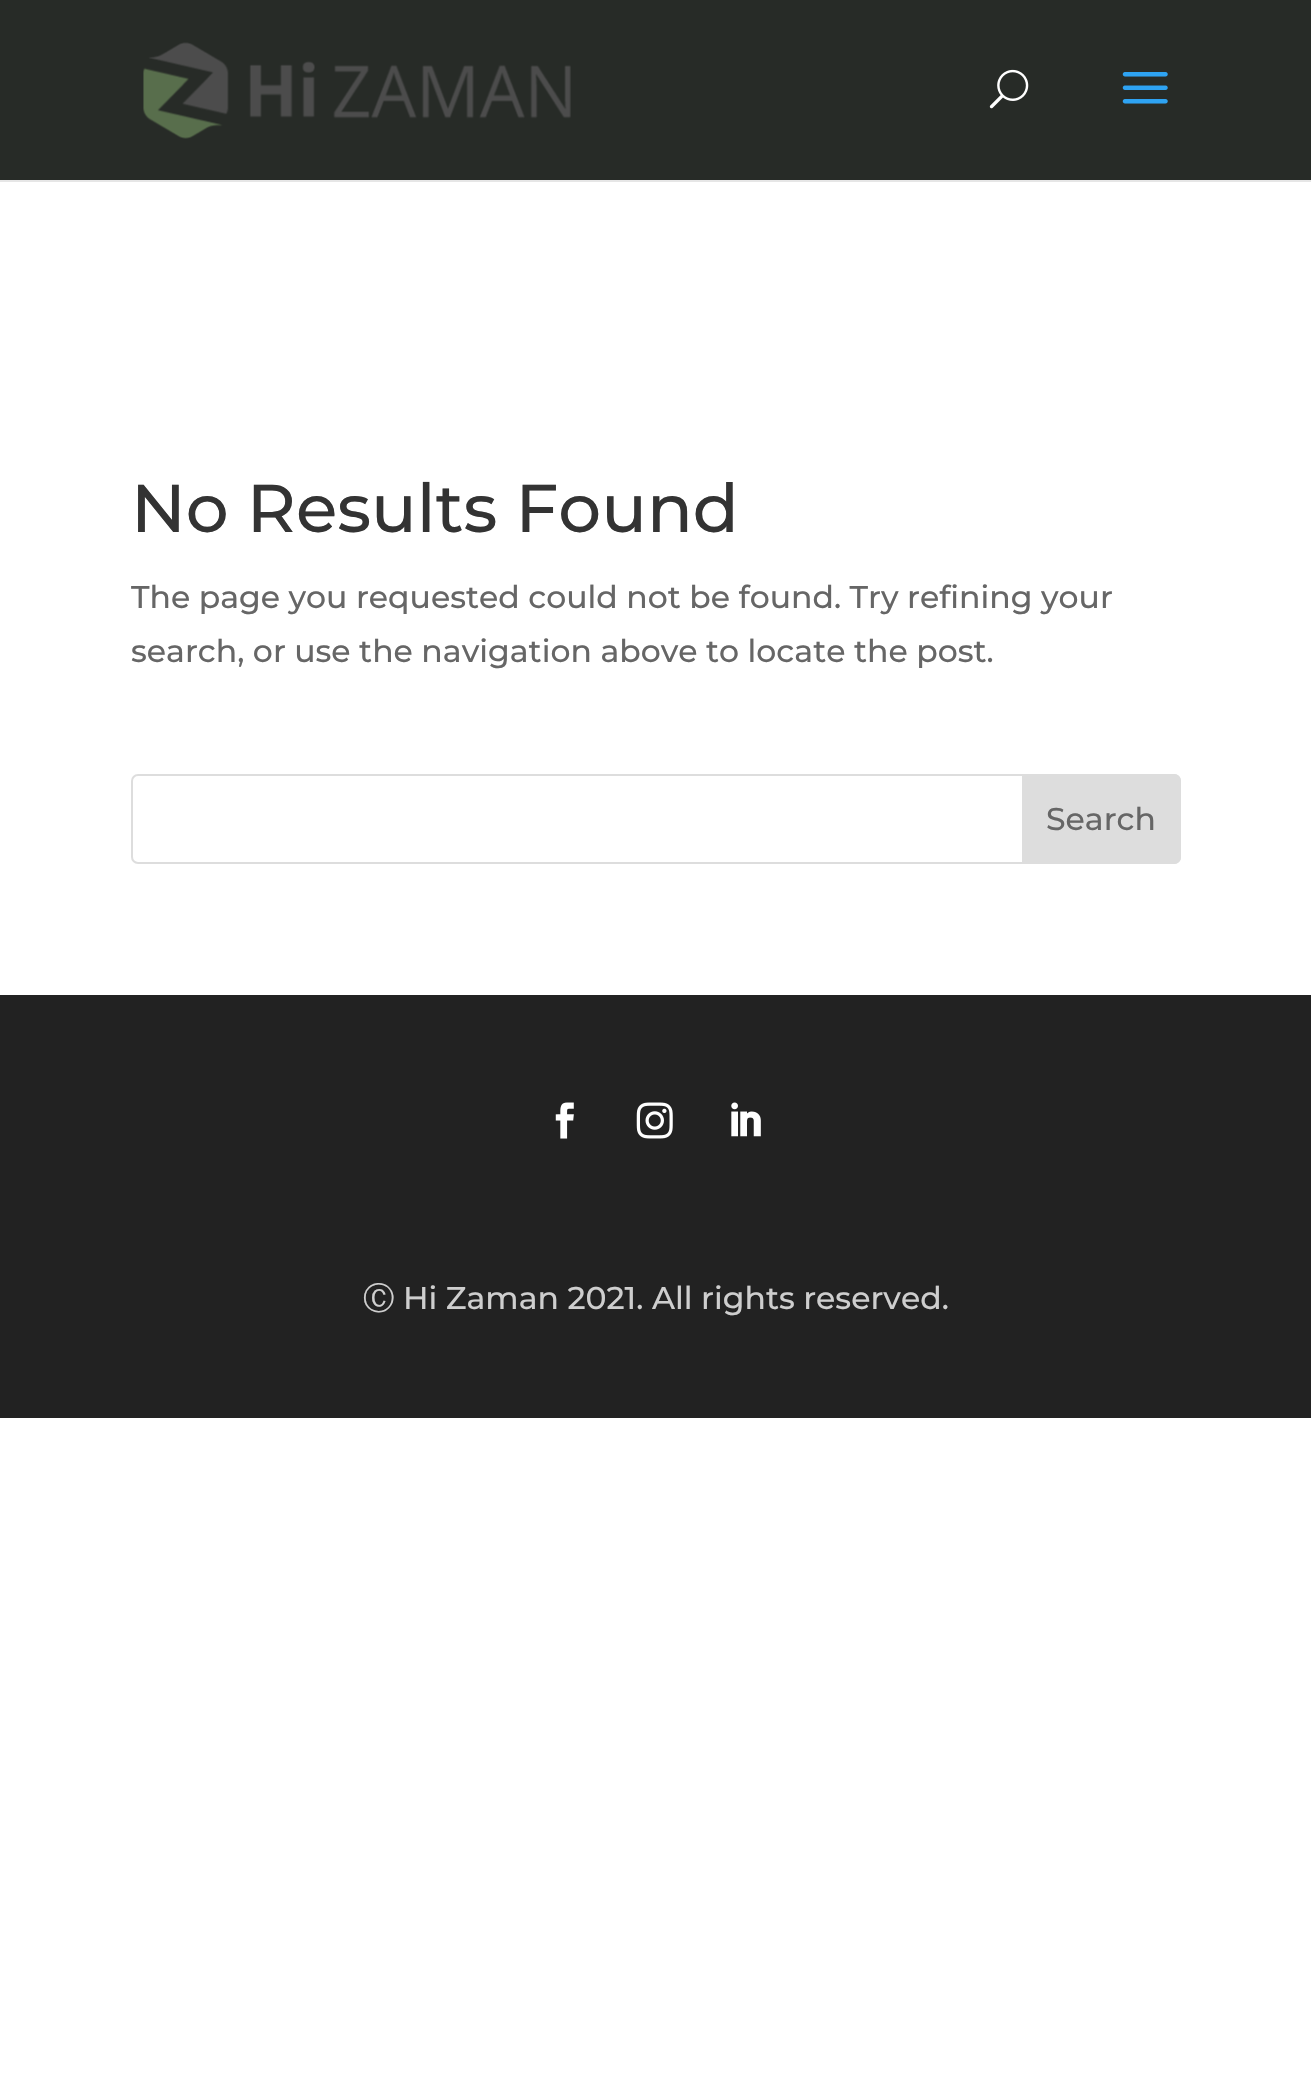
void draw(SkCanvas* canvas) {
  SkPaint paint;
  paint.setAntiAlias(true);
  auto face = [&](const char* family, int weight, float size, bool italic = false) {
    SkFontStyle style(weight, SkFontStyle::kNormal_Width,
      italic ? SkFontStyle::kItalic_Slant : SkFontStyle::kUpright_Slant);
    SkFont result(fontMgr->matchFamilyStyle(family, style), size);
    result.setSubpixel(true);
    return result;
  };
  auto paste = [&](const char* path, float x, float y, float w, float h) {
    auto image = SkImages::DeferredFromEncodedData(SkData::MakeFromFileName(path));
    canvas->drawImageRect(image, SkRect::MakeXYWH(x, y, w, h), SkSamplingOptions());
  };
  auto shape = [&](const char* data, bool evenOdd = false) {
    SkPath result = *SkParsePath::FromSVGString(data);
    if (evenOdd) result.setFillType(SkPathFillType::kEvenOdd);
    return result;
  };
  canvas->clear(0xffffffff);
  paint.setColor(0xffe6e6e6);
  canvas->drawPath(shape("M0 180V182H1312V2V180Z"), paint);
  paint.setColor(0xff272b27);
  canvas->drawRect(SkRect::MakeXYWH(0, 0, 1311, 180), paint);
  paste("img/1.png", 143, 42, 428, 97);
  paste("img/2.png", 989, 69, 40, 40);
  paste("img/3.png", 1122, 72, 46, 32);
  paint.setStroke(true);
  paint.setStrokeWidth(2);
  paint.setColor(0xffdddddd);
  canvas->drawRoundRect(SkRect::MakeXYWH(132, 775, 1048, 88), 6, 6, paint);
  paint.setStroke(false);
  canvas->drawPath(shape("M1023 775H1174C1177.5 775 1180 777.5 1180 781V857C1180 860.5 1177.5 863 1174 863H1023Z"), paint);
  paint.setStroke(true);
  canvas->drawPath(shape("M1023 775H1174C1177.5 775 1180 777.5 1180 781V857C1180 860.5 1177.5 863 1174 863H1023Z"), paint);
  paint.setStroke(false);
  paint.setColor(0xff222222);
  canvas->drawRect(SkRect::MakeXYWH(0, 995, 1311, 423), paint);
  paste("img/4.png", 555, 1102, 19, 37);
  paste("img/5.png", 636, 1102, 37, 37);
  paste("img/6.png", 731, 1102, 30, 35);
  auto f0 = face("Montserrat", 100, 67.5f);
  paint.setColor(0xff333333);
  canvas->drawString("No Results Found", 131, 532, f0, paint);
  auto f1 = face("Montserrat", 100, 31.5f);
  paint.setColor(0xff666666);
  {
    const struct { const char* s; float x, y; } items[] = {
      {"The page you requested could not be found. Try refining your", 131, 608},
      {"search, or use the navigation above to locate the post.", 131, 662},
      {"Search", 1046, 830},
    };
    for (auto [s, x, y] : items) {
      canvas->drawString(s, x, y, f1, paint);
    }
  }
  auto f2 = face("WenQuanYi Zen Hei", 500, 31.5f);
  paint.setColor(0xffcecece);
  canvas->drawString("Ⓒ", 363, 1309, f2, paint);
  canvas->drawString("Hi Zaman 2021. All rights reserved.", 403, 1309, f1, paint);
}
